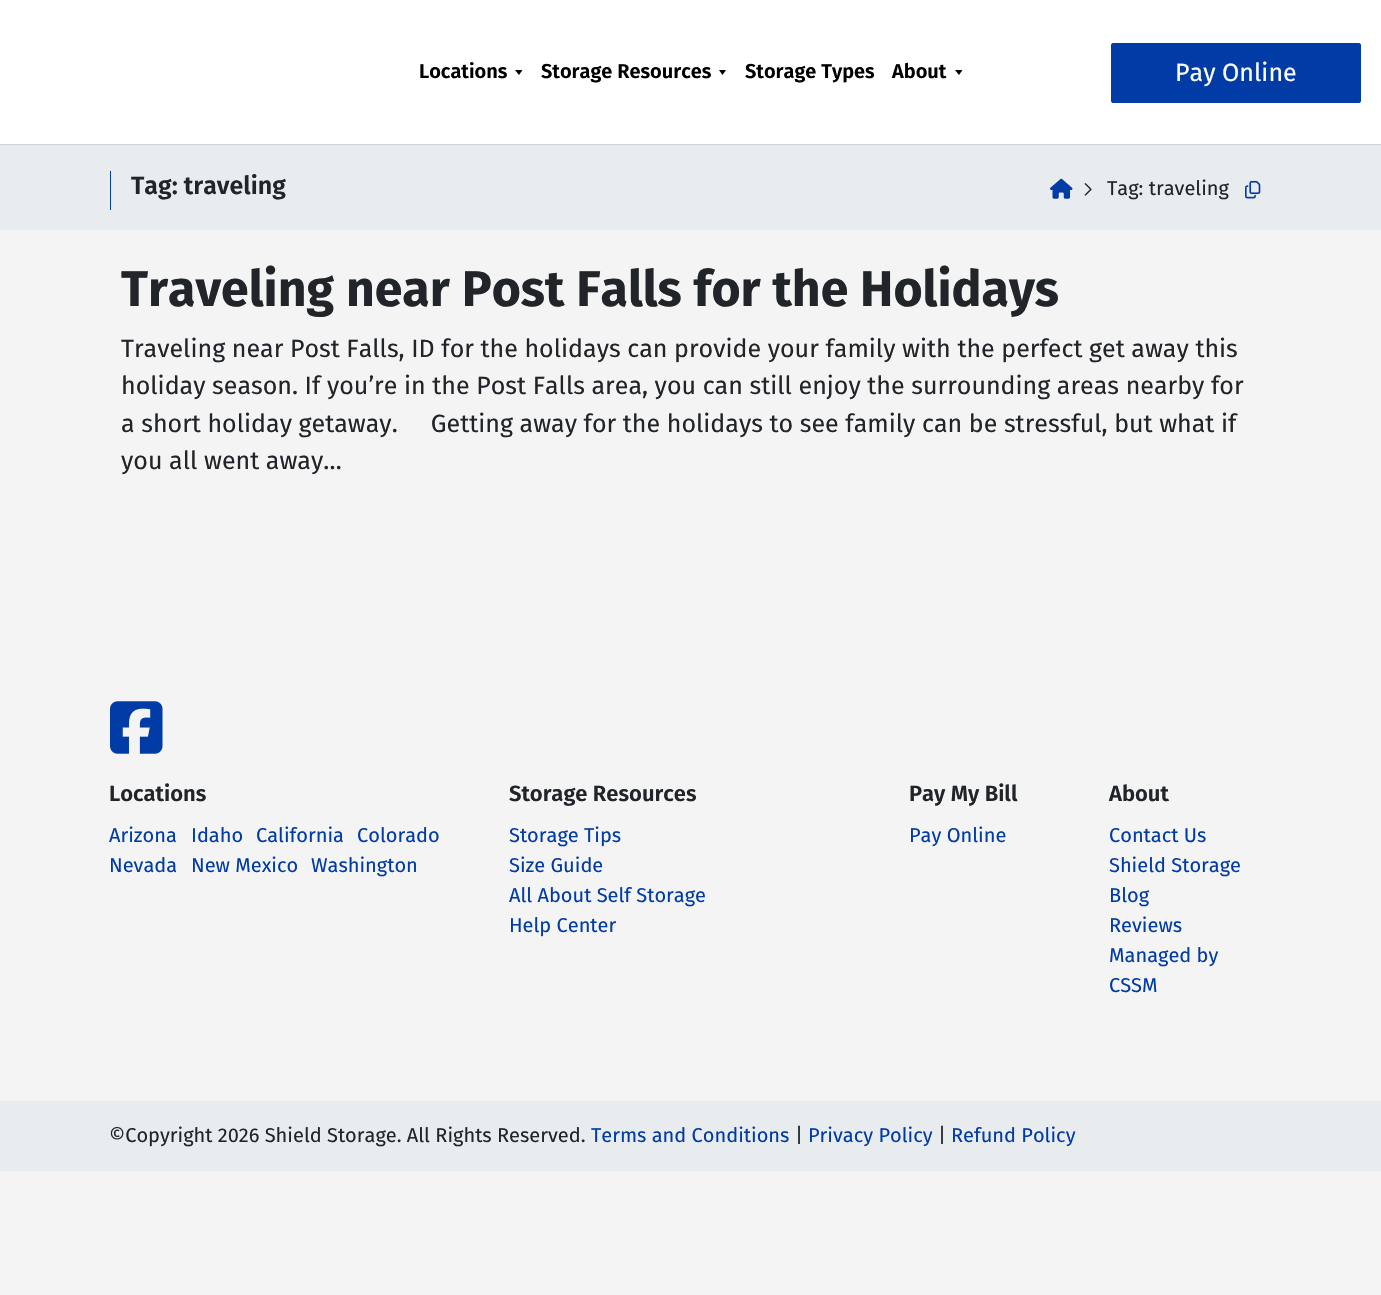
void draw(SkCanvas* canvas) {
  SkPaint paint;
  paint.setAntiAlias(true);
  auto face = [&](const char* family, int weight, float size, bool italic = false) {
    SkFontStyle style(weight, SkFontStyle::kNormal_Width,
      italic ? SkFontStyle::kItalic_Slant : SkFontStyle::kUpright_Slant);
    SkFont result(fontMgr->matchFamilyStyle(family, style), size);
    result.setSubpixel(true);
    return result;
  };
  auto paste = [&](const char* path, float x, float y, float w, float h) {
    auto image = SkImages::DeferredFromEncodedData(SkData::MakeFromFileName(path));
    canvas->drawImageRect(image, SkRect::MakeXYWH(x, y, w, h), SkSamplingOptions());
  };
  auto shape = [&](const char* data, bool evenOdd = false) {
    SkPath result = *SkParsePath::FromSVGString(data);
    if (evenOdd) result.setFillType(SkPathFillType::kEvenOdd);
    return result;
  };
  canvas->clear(0xfff4f4f4);
  paint.setColor(0xffffffff);
  canvas->drawRect(SkRect::MakeXYWH(0, 0, 1381, 144), paint);
  paint.setColor(0xffced4da);
  canvas->drawRect(SkRect::MakeXYWH(0, 144, 1381, 1), paint);
  paint.setColor(0xff000000);
  canvas->drawPath(shape("M515 70H522.5L519 75Z"), paint);
  canvas->drawPath(shape("M719 70H726L722.5 75Z"), paint);
  canvas->drawPath(shape("M955 70H962.5L959 75Z"), paint);
  paint.setColor(0xff013ca6);
  canvas->drawRoundRect(SkRect::MakeXYWH(1111.5f, 43.5f, 249, 59), 1.5f, 1.5f, paint);
  paint.setStroke(true);
  paint.setStrokeWidth(1);
  canvas->drawRoundRect(SkRect::MakeXYWH(1111.5f, 43.5f, 249, 59), 1.5f, 1.5f, paint);
  paint.setStroke(false);
  paint.setColor(0xffe9ecef);
  canvas->drawRect(SkRect::MakeXYWH(0, 145, 1381, 85), paint);
  paint.setColor(0xff013ca6);
  canvas->drawRect(SkRect::MakeXYWH(110, 171, 1, 39), paint);
  paste("img/1.png", 1050, 178, 23, 21);
  paste("img/2.png", 1084, 183, 8, 13);
  paste("img/3.png", 1245, 180, 16, 19);
  paste("img/4.png", 110, 701, 53, 53);
  paint.setColor(0xffe9ecef);
  canvas->drawRect(SkRect::MakeXYWH(0, 1101, 1381, 70), paint);
  auto f0 = face("Fira Sans", 600, 20);
  paint.setColor(0xff000000);
  {
    const struct { const char* s; float x, y; } items[] = {
      {"Locations", 419, 78},
      {"Storage Resources", 541, 78},
      {"Storage Types", 745, 78},
      {"About", 892, 78},
    };
    for (auto [s, x, y] : items) {
      canvas->drawString(s, x, y, f0, paint);
    }
  }
  auto f1 = face("Fira Sans", 400, 25);
  paint.setColor(0xffffffff);
  canvas->drawString("Pay Online", 1175, 81, f1, paint);
  auto f2 = face("Fira Sans", 600, 25);
  paint.setColor(0xff212529);
  canvas->drawString("Tag: traveling", 131, 194, f2, paint);
  auto f3 = face("Fira Sans", 400, 20);
  canvas->drawString("Tag: traveling", 1107, 195, f3, paint);
  auto f4 = face("Fira Sans", 700, 50);
  canvas->drawString("Traveling near Post Falls for the Holidays", 121, 306, f4, paint);
  {
    const struct { const char* s; float x, y; } items[] = {
      {"Traveling near Post Falls, ID for the holidays can provide your family with the perfect get away this", 121, 357},
      {"holiday season. If you’re in the Post Falls area, you can still enjoy the surrounding areas nearby for", 121, 394},
      {"a short holiday getaway.     Getting away for the holidays to see family can be stressful, but what if", 121, 432},
      {"you all went away…", 121, 469},
    };
    for (auto [s, x, y] : items) {
      canvas->drawString(s, x, y, f1, paint);
    }
  }
  auto f5 = face("Fira Sans", 600, 22);
  canvas->drawString("Locations", 109, 801, f5, paint);
  paint.setColor(0xff013ca6);
  {
    const struct { const char* s; float x, y; } items[] = {
      {"Arizona", 109, 842},
      {"Idaho", 191, 842},
      {"California", 256, 842},
      {"Colorado", 357, 842},
      {"Nevada", 109, 872},
      {"New Mexico", 191, 872},
      {"Washington", 311, 872},
    };
    for (auto [s, x, y] : items) {
      canvas->drawString(s, x, y, f3, paint);
    }
  }
  paint.setColor(0xff212529);
  canvas->drawString("Storage Resources", 509, 801, f5, paint);
  paint.setColor(0xff013ca6);
  {
    const struct { const char* s; float x, y; } items[] = {
      {"Storage Tips", 509, 842},
      {"Size Guide", 509, 872},
      {"All About Self Storage", 509, 902},
      {"Help Center", 509, 932},
    };
    for (auto [s, x, y] : items) {
      canvas->drawString(s, x, y, f3, paint);
    }
  }
  paint.setColor(0xff212529);
  canvas->drawString("Pay My Bill", 909, 801, f5, paint);
  paint.setColor(0xff013ca6);
  canvas->drawString("Pay Online", 909, 842, f3, paint);
  paint.setColor(0xff212529);
  canvas->drawString("About", 1109, 801, f5, paint);
  paint.setColor(0xff013ca6);
  {
    const struct { const char* s; float x, y; } items[] = {
      {"Contact Us", 1109, 842},
      {"Shield Storage", 1109, 872},
      {"Blog", 1109, 902},
      {"Reviews", 1109, 932},
      {"Managed by", 1109, 962},
      {"CSSM", 1109, 992},
    };
    for (auto [s, x, y] : items) {
      canvas->drawString(s, x, y, f3, paint);
    }
  }
  paint.setColor(0xff212529);
  canvas->drawString("©Copyright 2026 Shield Storage. All Rights Reserved.", 109, 1142, f3, paint);
  paint.setColor(0xff013ca6);
  canvas->drawString("Terms and Conditions", 591, 1142, f3, paint);
  paint.setColor(0xff212529);
  canvas->drawString("|", 795, 1142, f3, paint);
  paint.setColor(0xff013ca6);
  canvas->drawString("Privacy Policy", 808, 1142, f3, paint);
  paint.setColor(0xff212529);
  canvas->drawString("|", 938, 1142, f3, paint);
  paint.setColor(0xff013ca6);
  canvas->drawString("Refund Policy", 951, 1142, f3, paint);
}
